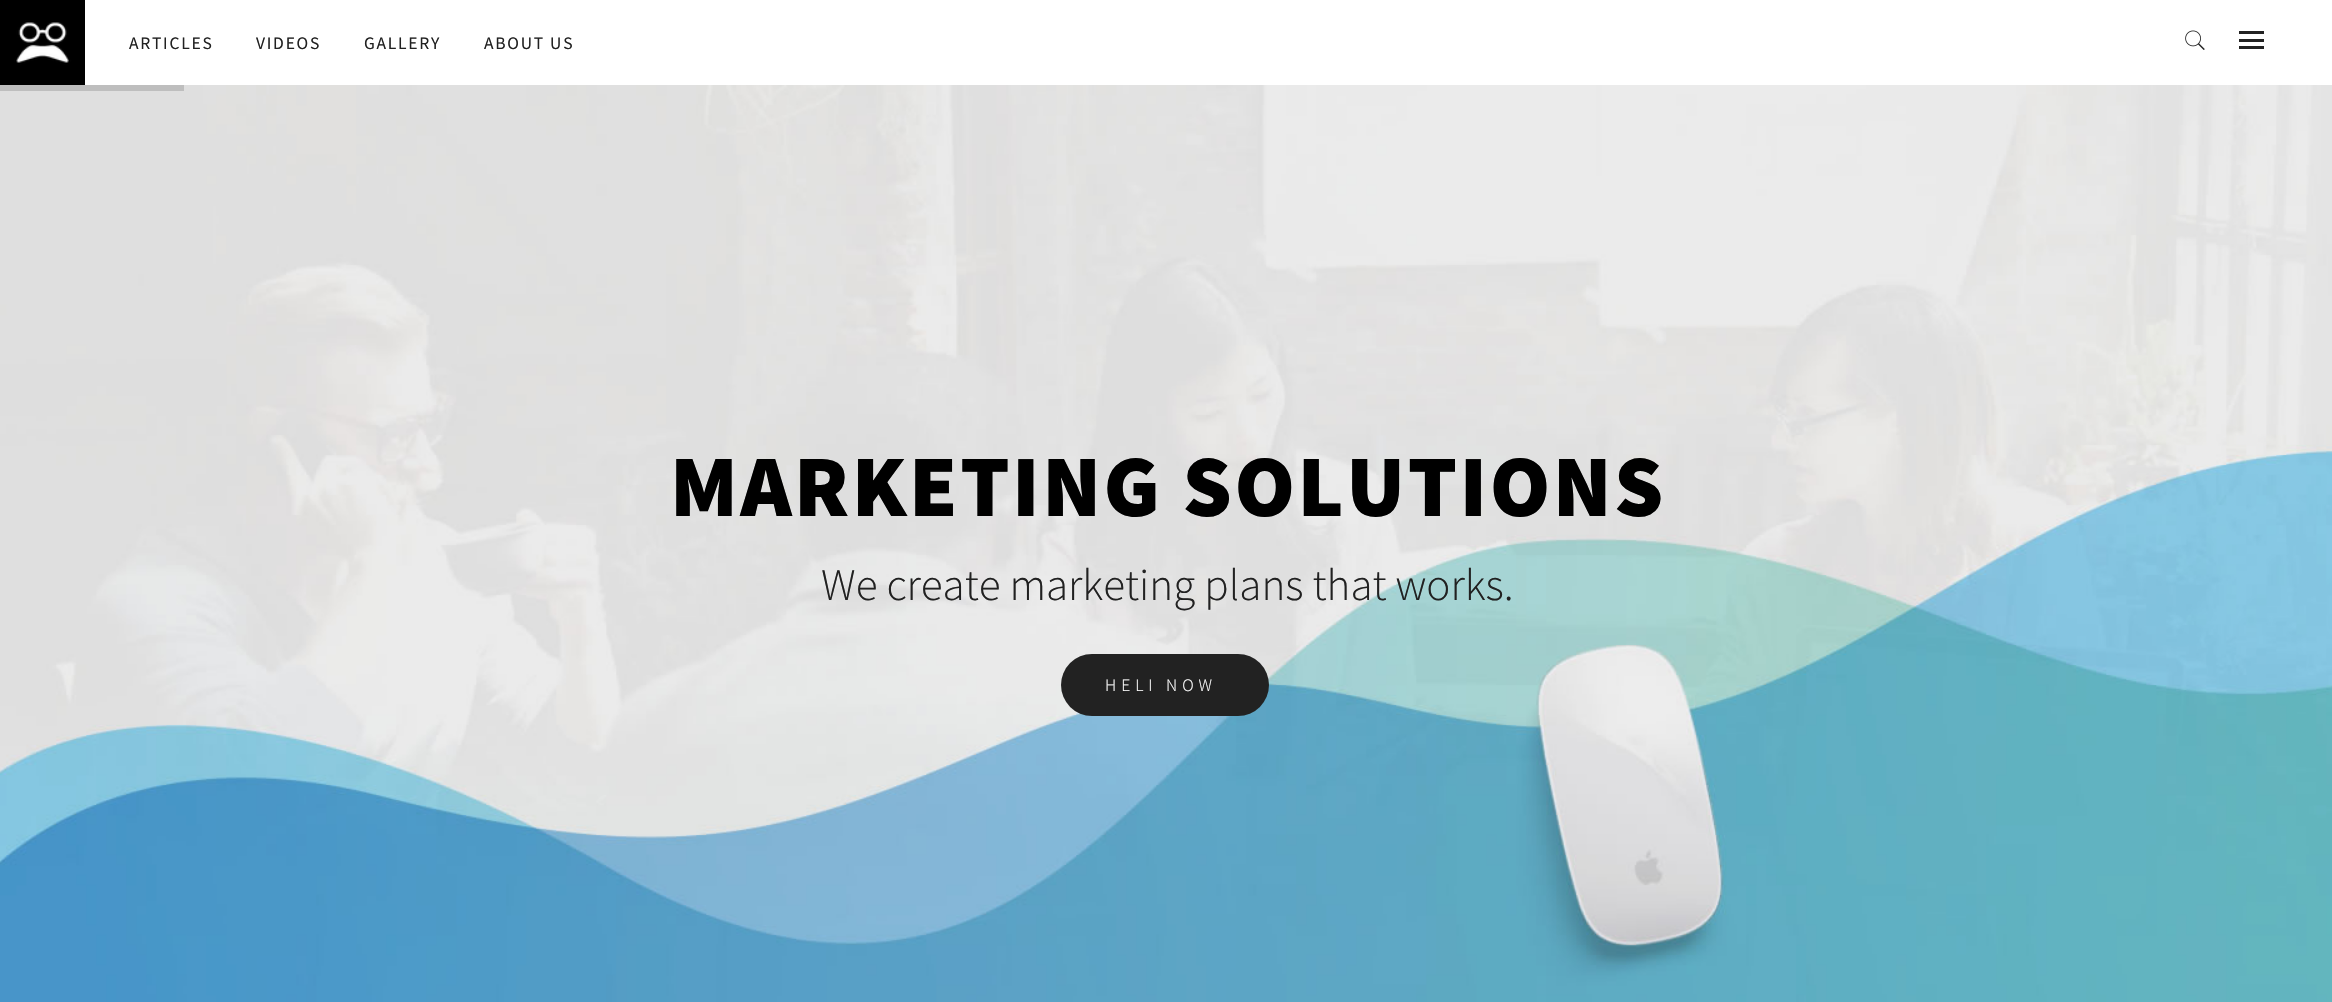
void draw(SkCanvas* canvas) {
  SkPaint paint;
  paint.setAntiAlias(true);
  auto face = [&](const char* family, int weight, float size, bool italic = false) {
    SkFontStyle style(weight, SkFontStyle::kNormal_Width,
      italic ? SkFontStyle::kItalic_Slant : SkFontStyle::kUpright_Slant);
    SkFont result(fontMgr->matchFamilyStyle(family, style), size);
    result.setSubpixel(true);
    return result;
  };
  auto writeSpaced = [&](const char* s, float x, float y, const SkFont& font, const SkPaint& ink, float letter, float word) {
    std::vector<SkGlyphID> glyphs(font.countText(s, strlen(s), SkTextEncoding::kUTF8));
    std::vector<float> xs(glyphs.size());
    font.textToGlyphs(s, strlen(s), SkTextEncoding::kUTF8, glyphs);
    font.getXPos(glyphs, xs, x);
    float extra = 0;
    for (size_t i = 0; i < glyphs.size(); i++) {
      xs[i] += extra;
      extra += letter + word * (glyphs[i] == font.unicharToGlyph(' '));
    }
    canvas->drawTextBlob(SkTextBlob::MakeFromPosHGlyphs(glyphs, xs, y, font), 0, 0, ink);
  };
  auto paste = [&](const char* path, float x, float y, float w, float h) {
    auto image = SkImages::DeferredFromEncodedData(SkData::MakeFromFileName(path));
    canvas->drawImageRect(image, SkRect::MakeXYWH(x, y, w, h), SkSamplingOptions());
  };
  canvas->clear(0xffffffff);
  paste("img/1.png", 0, 0, 85, 85);
  paste("img/2.png", 2185, 30, 20, 20);
  {
    const struct { float x, y, w, h; SkColor color; } items[] = {
      {2239, 31, 25, 3, 0xff222222},
      {2239, 39, 25, 3, 0xff222222},
      {2239, 46, 25, 3, 0xff222222},
    };
    for (auto [x, y, w, h, color] : items) {
      paint.setColor(color);
      canvas->drawRect(SkRect::MakeXYWH(x, y, w, h), paint);
    }
  }
  paste("img/3.png", 0, 85, 2332, 917);
  paint.setColor(0xffbebebe);
  canvas->drawRect(SkRect::MakeXYWH(0, 85, 184, 6), paint);
  paint.setColor(0xff222222);
  canvas->drawRoundRect(SkRect::MakeXYWH(1061, 654, 208, 62), 31, 31, paint);
  auto f0 = face("Source Sans Pro", 400, 17.5f);
  paint.setColor(0xff212121);
  {
    const struct { const char* s; float x, y; } items[] = {
      {"ARTICLES", 129, 49},
      {"VIDEOS", 256, 49},
      {"GALLERY", 364, 49},
      {"ABOUT US", 484, 49},
    };
    for (auto [s, x, y] : items) {
      writeSpaced(s, x, y, f0, paint, 1.75f, 0);
    }
  }
  auto f1 = face("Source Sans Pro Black", 900, 87.5f);
  paint.setColor(0xff000000);
  writeSpaced("MARKETING SOLUTIONS", 670, 516, f1, paint, 2.5f, 0);
  auto f2 = face("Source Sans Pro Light", 300, 45);
  paint.setColor(0xff212121);
  canvas->drawString("We create marketing plans that works.", 821, 600, f2, paint);
  auto f3 = face("Source Sans Pro Light", 300, 17.5f);
  paint.setColor(0xffffffff);
  writeSpaced("HELI NOW", 1105, 691, f3, paint, 5, 0);
}
